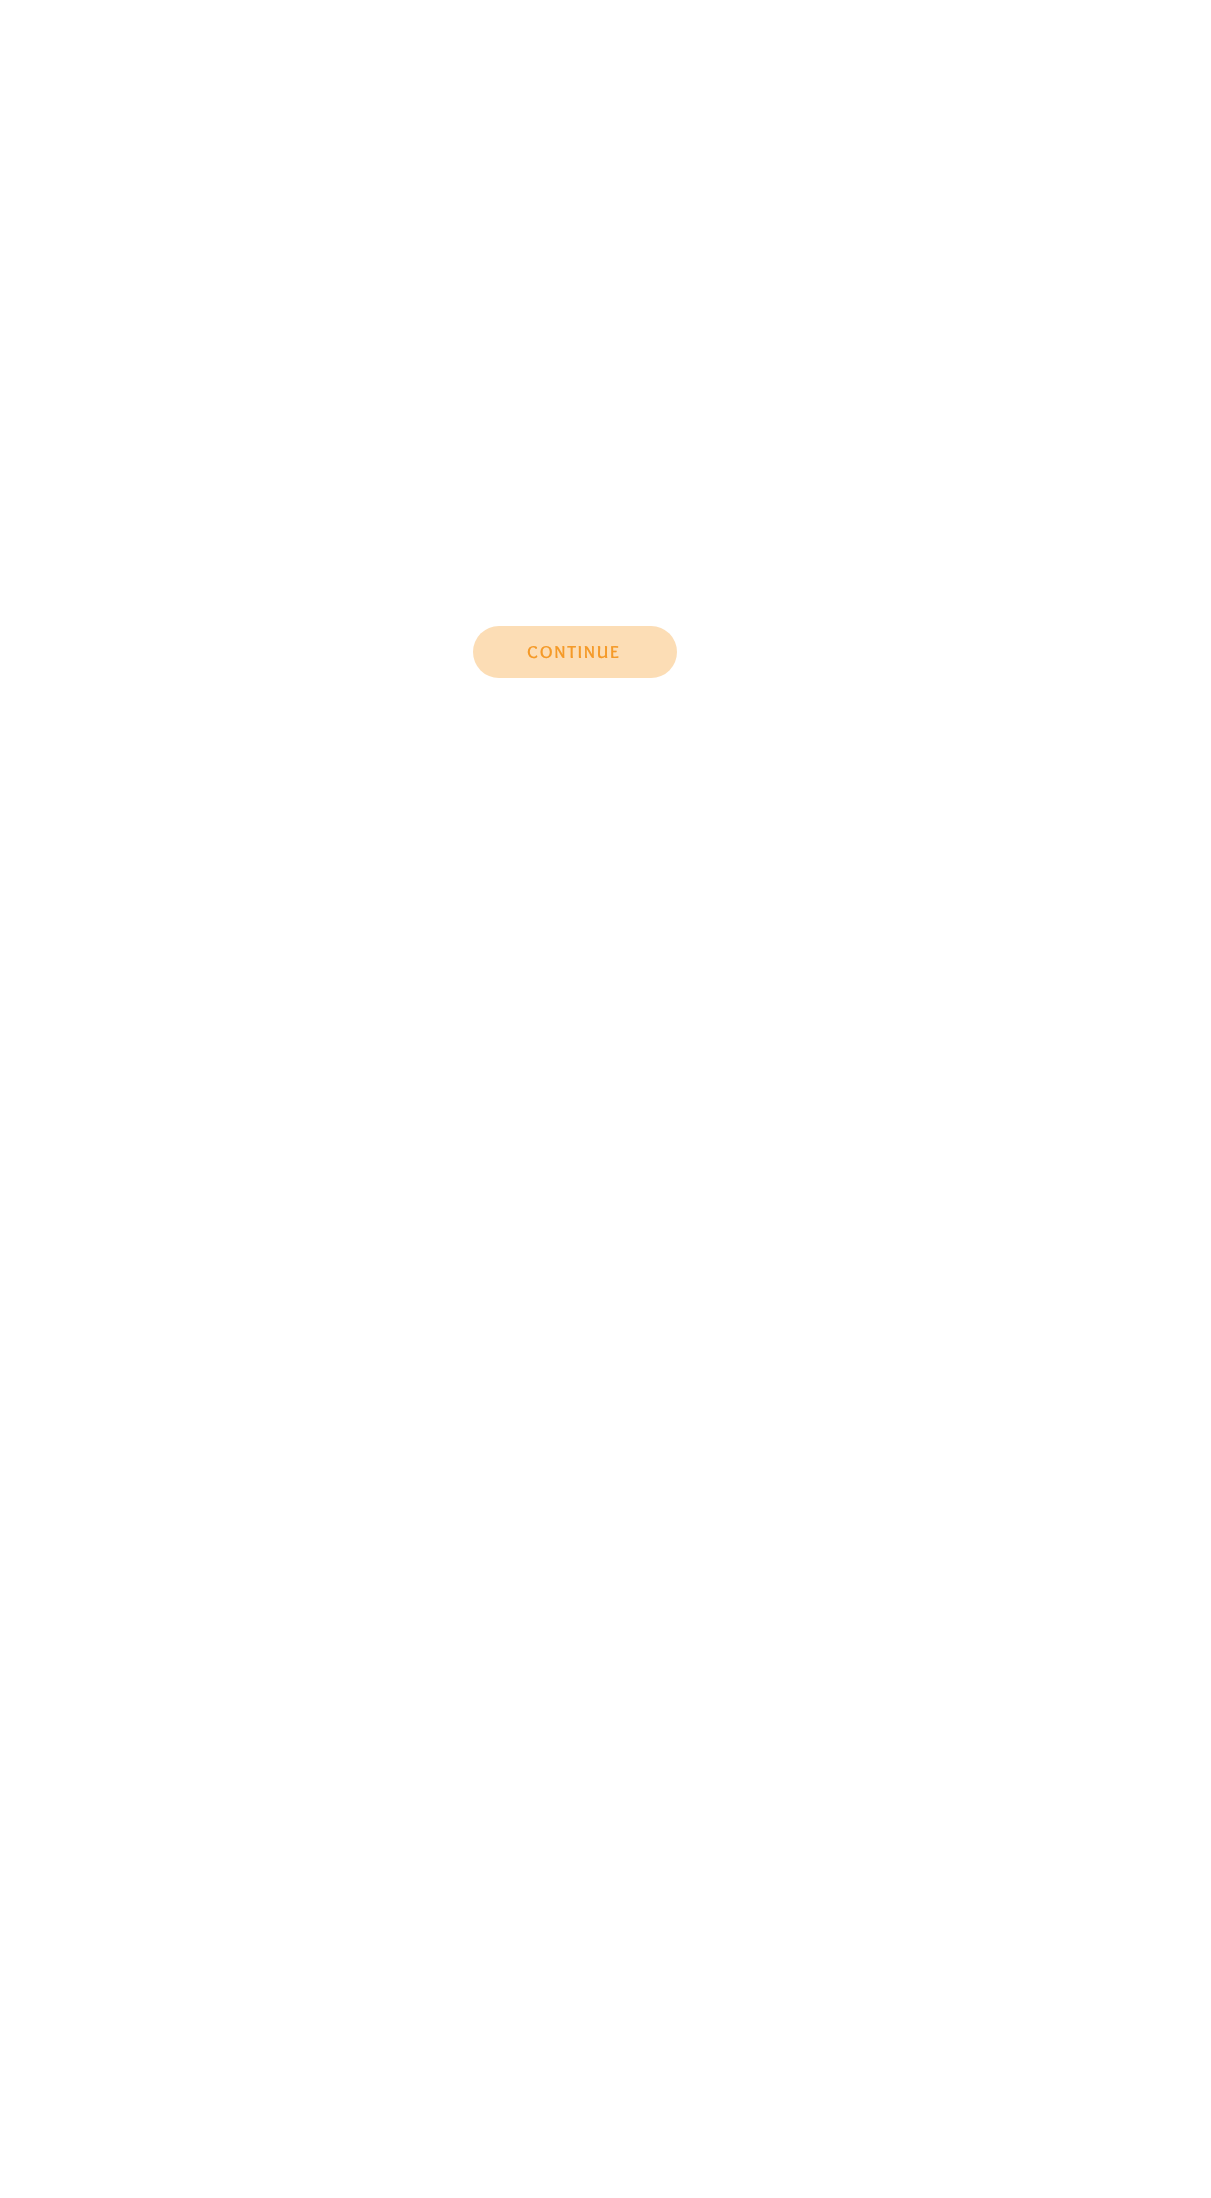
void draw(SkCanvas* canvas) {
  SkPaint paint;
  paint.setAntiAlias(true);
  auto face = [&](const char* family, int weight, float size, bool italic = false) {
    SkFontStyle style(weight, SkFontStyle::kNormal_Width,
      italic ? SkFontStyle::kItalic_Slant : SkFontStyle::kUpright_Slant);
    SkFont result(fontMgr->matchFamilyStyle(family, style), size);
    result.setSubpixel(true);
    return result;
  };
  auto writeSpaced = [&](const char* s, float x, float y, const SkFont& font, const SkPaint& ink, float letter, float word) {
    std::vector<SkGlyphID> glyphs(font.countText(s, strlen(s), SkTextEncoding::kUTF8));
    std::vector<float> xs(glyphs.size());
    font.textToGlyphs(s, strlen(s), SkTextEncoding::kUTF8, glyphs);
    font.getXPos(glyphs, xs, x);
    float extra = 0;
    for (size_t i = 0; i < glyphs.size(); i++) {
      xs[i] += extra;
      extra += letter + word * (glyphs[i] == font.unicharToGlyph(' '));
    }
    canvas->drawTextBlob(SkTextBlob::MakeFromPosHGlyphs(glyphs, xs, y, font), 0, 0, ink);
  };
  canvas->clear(0xffffffff);
  paint.setColor(0xfffcddb5);
  canvas->drawRoundRect(SkRect::MakeXYWH(473, 626, 204, 52), 26, 26, paint);
  auto f0 = face("Overlock", 700, 18);
  paint.setColor(0xfff59a28);
  writeSpaced("CONTINUE", 527, 658, f0, paint, 1.75f, 0);
}
